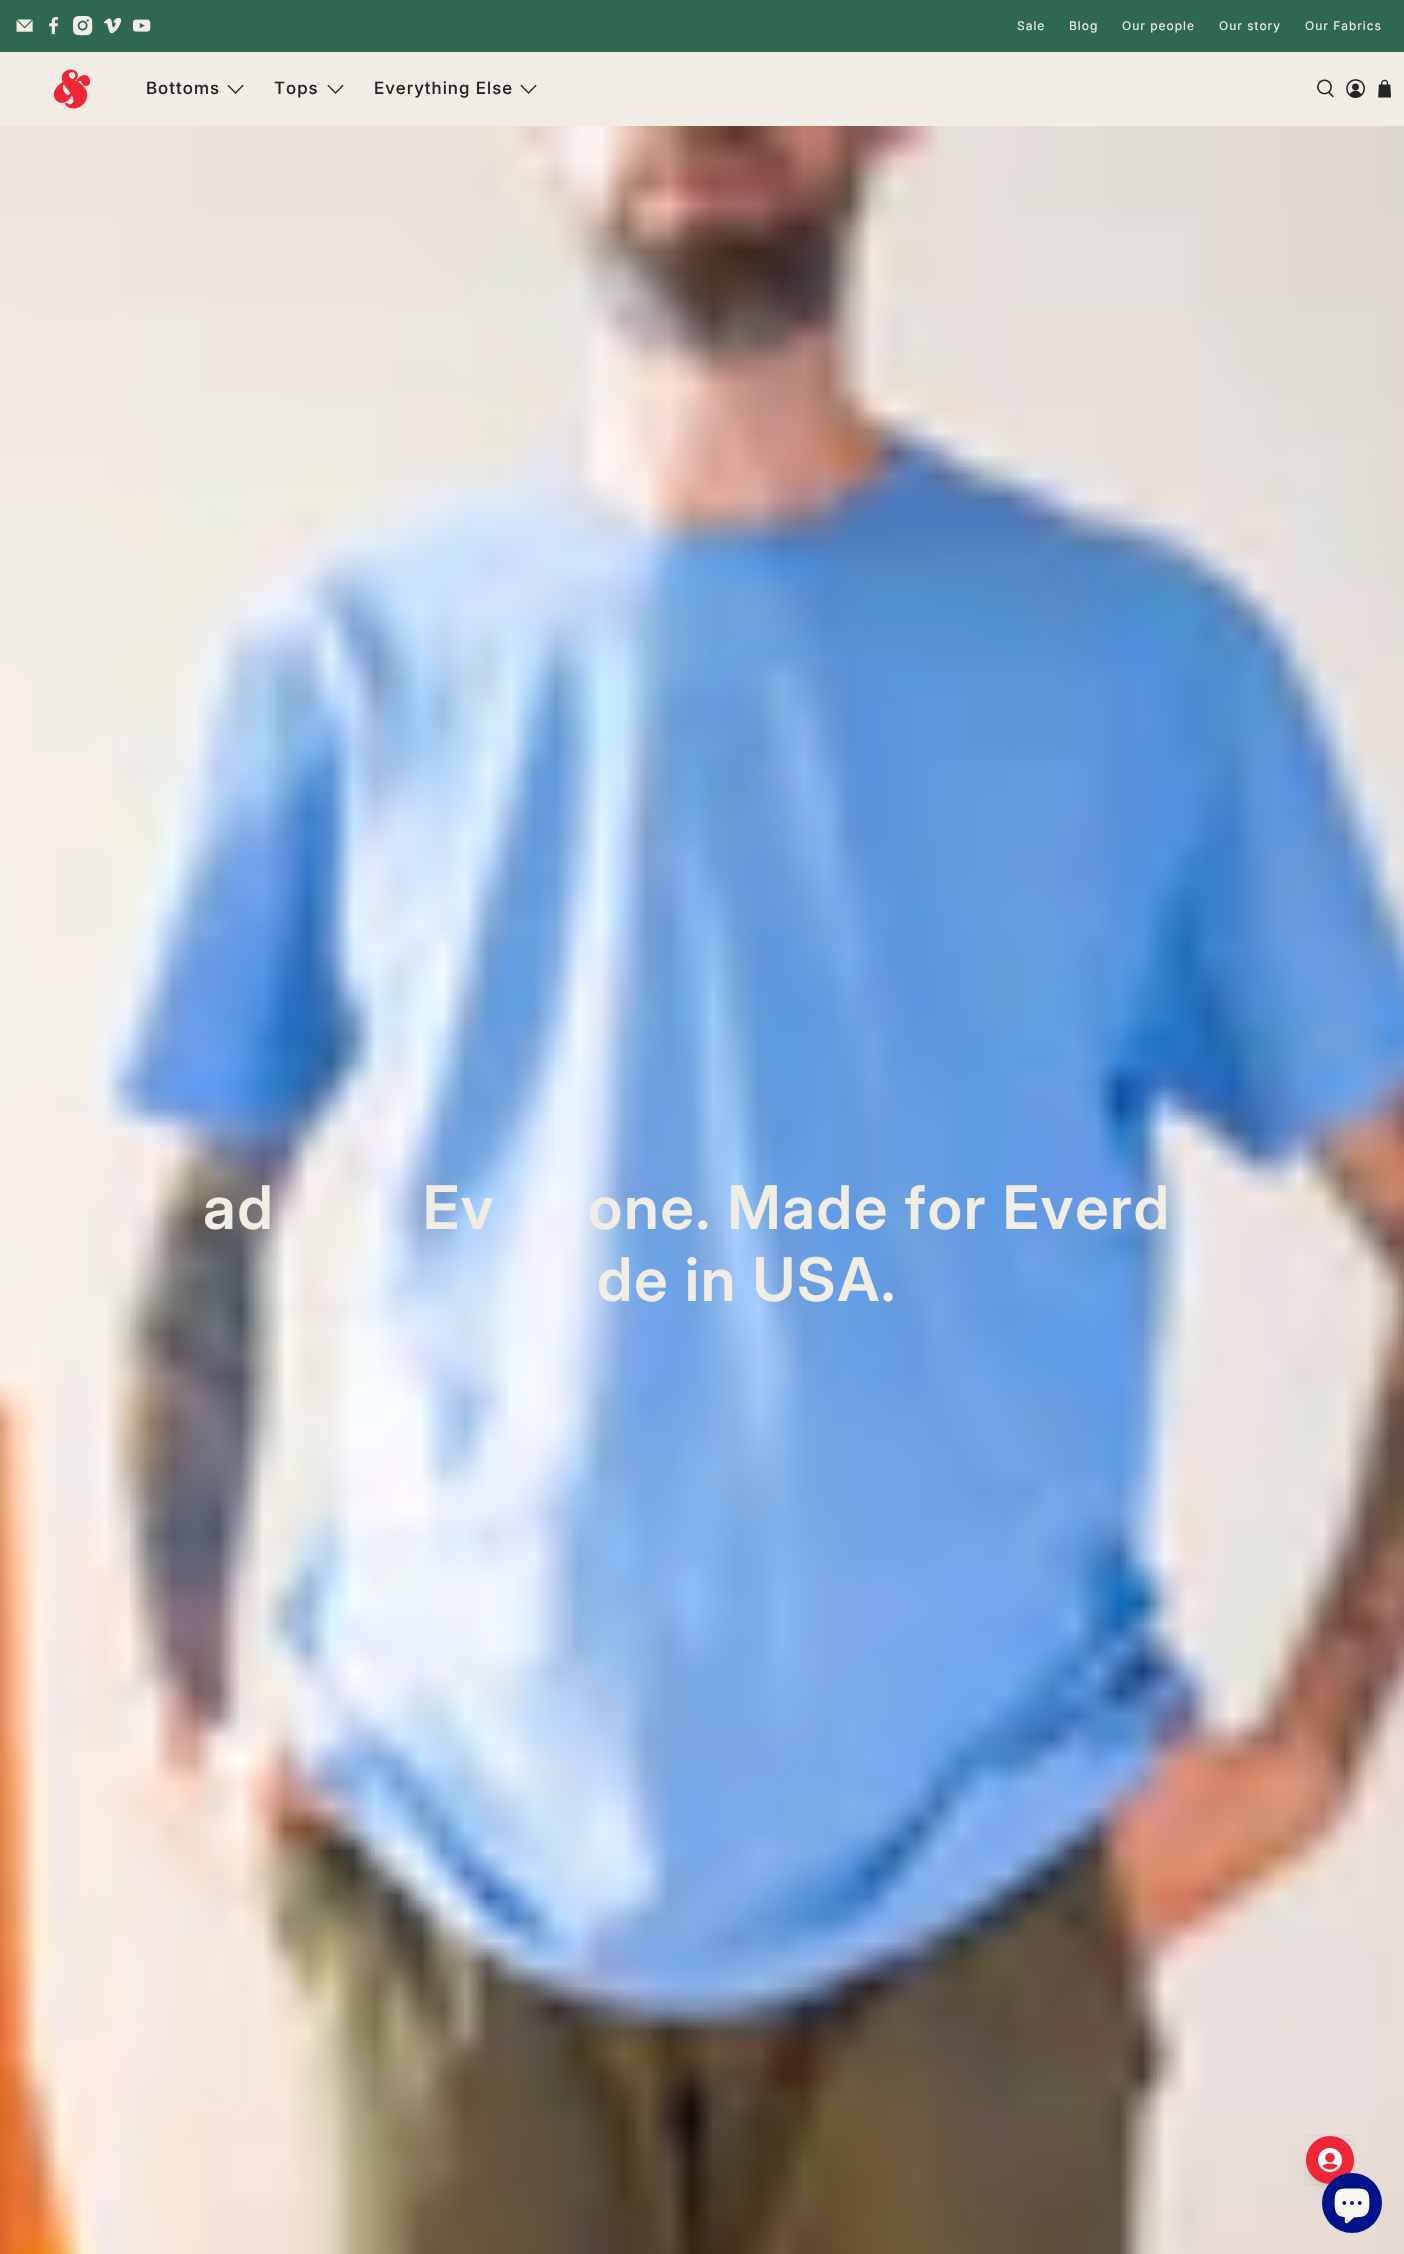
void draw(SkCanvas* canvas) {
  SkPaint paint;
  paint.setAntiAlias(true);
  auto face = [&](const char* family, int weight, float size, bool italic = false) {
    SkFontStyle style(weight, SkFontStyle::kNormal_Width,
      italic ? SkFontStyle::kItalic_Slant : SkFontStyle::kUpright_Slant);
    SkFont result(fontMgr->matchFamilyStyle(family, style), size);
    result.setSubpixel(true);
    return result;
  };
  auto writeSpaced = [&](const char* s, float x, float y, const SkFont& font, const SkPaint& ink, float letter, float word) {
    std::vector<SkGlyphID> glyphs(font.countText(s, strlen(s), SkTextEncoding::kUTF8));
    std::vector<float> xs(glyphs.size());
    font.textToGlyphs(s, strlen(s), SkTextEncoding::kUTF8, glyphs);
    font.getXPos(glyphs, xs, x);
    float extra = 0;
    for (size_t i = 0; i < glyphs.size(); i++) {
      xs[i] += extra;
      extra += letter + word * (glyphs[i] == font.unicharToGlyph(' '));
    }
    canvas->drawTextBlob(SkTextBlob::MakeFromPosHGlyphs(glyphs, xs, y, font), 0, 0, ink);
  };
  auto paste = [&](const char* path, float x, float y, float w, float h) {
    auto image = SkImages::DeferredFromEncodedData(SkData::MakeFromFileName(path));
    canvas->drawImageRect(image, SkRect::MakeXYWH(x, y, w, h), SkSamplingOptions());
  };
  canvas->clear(0xfff1ede5);
  paint.setColor(0xff2e684e);
  canvas->drawRect(SkRect::MakeXYWH(0, 0, 1404, 52), paint);
  paste("img/1.png", 16, 19, 17, 13);
  paste("img/2.png", 49, 17, 10, 18);
  paste("img/3.png", 73, 16, 20, 20);
  paste("img/4.png", 104, 18, 18, 16);
  paste("img/5.png", 132, 19, 19, 13);
  paste("img/6.png", 53, 69, 38, 40);
  paste("img/7.png", 227, 84, 17, 10);
  paste("img/7.png", 327, 84, 17, 10);
  paste("img/7.png", 520, 84, 17, 10);
  paste("img/8.png", 1317, 79, 17, 19);
  paste("img/9.png", 1346, 79, 19, 19);
  paste("img/10.png", 1378, 79, 13, 19);
  paste("img/11.png", 0, 126, 1404, 2128);
  paint.setColor(0x14373f47);
  paint.setMaskFilter(SkMaskFilter::MakeBlur(kNormal_SkBlurStyle, 12));
  canvas->drawRoundRect(SkRect::MakeXYWH(1306, 2144, 48, 48), 24, 24, paint);
  paint.setMaskFilter(nullptr);
  paint.setMaskFilter(SkMaskFilter::MakeBlur(kNormal_SkBlurStyle, 2));
  canvas->drawRoundRect(SkRect::MakeXYWH(1306, 2140, 48, 48), 24, 24, paint);
  paint.setMaskFilter(nullptr);
  paint.setStroke(true);
  paint.setStrokeWidth(1);
  paint.setColor(0x0a373f47);
  canvas->drawRect(SkRect::MakeXYWH(1305.5f, 2135.5f, 49, 49), paint);
  paint.setStroke(false);
  paint.setColor(0xffee2737);
  canvas->drawCircle(1330, 2160, 24, paint);
  paste("img/12.png", 1318, 2148, 24, 24);
  paint.setColor(0xff001489);
  canvas->drawCircle(1352, 2203, 30, paint);
  paste("img/13.png", 1334, 2188, 36, 36);
  auto f0 = face("Inter", 400, 12);
  paint.setColor(0xfff1ede5);
  {
    const struct { const char* s; float x, y; } items[] = {
      {"Sale", 1017, 30},
      {"Blog", 1069, 30},
      {"Our people", 1122, 30},
      {"Our story", 1219, 30},
      {"Our Fabrics", 1305, 30},
    };
    for (auto [s, x, y] : items) {
      writeSpaced(s, x, y, f0, paint, 1, 0);
    }
  }
  auto f1 = face("Inter", 500, 17);
  paint.setColor(0xff252525);
  {
    const struct { const char* s; float x, y; } items[] = {
      {"Bottoms", 146, 94},
      {"Tops", 274, 94},
      {"Everything Else", 374, 94},
    };
    for (auto [s, x, y] : items) {
      writeSpaced(s, x, y, f1, paint, 1, 0);
    }
  }
  auto f2 = face("Inter", 600, 60);
  paint.setColor(0xfff1ede5);
  {
    const struct { const char* s; float x, y; } items[] = {
      {"ad", 203, 1229},
      {"Ev", 423, 1229},
      {"one. Made for Everd", 588, 1229},
      {"de in USA.", 597, 1301},
    };
    for (auto [s, x, y] : items) {
      writeSpaced(s, x, y, f2, paint, 2, 0);
    }
  }
}
